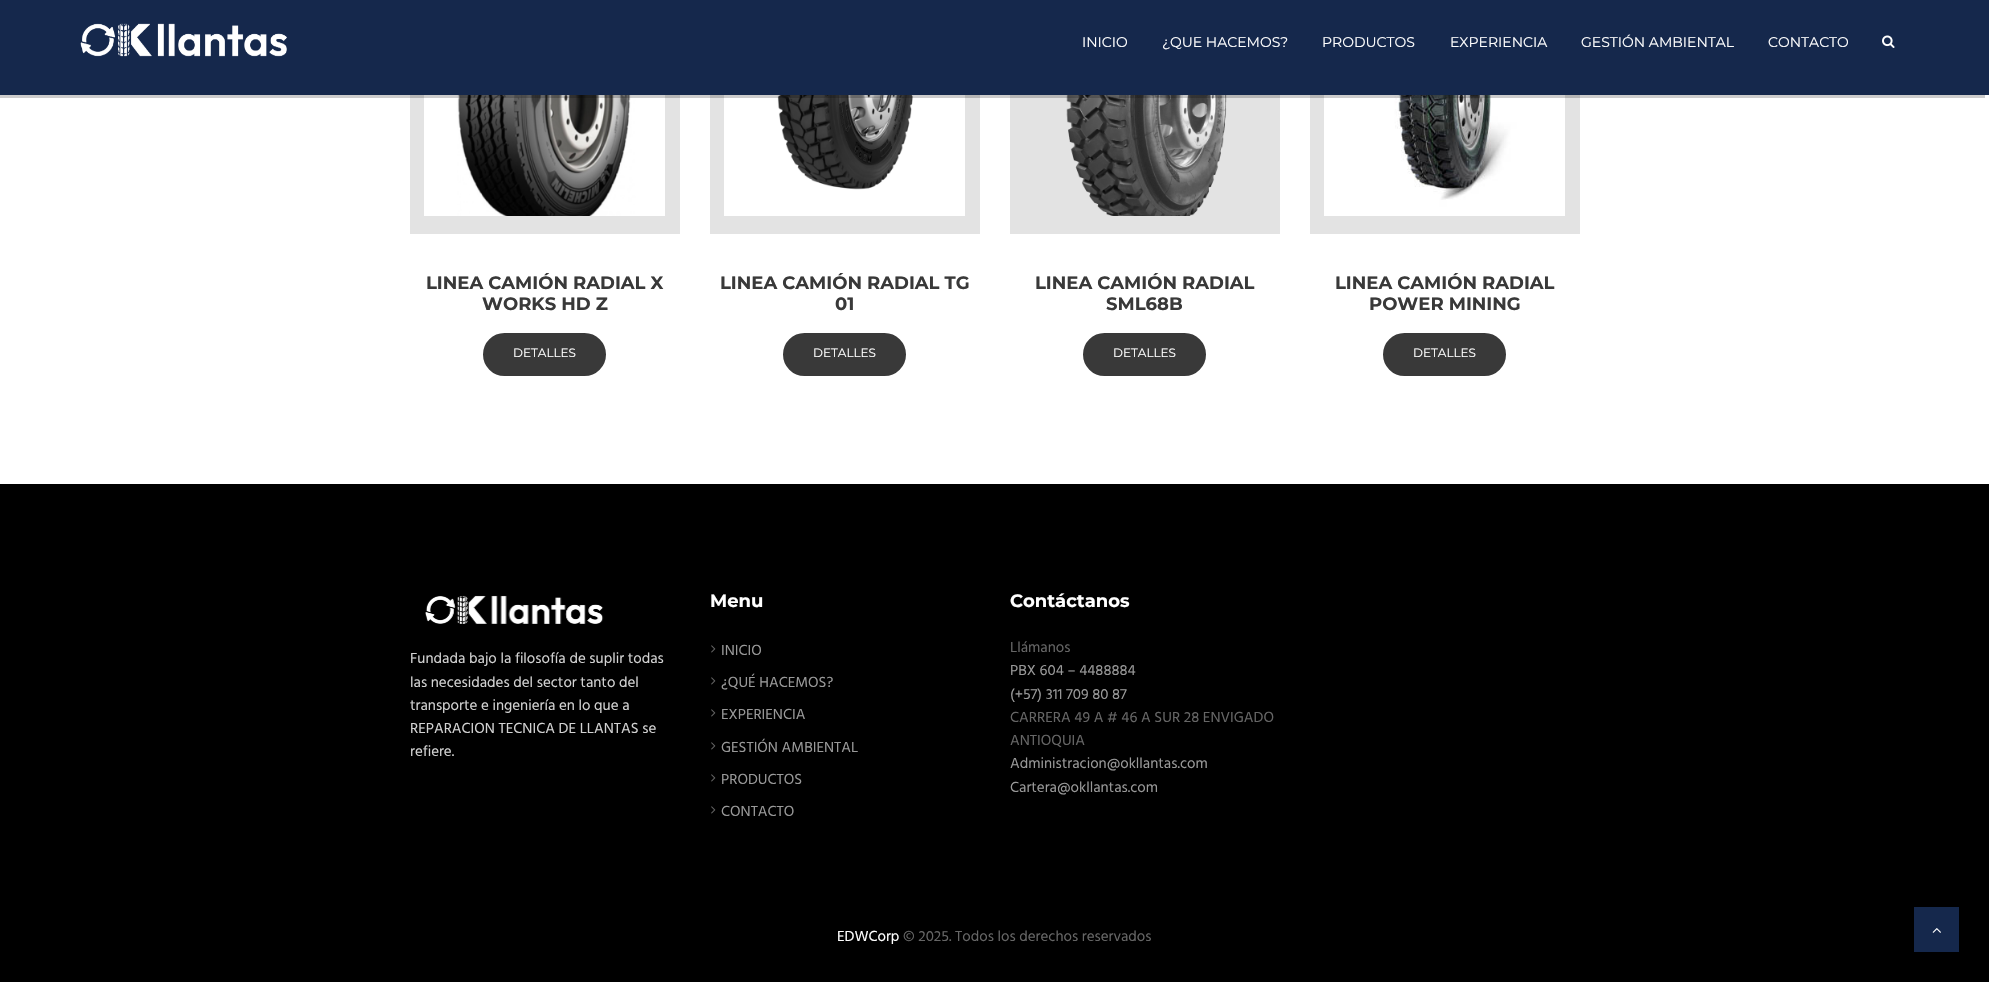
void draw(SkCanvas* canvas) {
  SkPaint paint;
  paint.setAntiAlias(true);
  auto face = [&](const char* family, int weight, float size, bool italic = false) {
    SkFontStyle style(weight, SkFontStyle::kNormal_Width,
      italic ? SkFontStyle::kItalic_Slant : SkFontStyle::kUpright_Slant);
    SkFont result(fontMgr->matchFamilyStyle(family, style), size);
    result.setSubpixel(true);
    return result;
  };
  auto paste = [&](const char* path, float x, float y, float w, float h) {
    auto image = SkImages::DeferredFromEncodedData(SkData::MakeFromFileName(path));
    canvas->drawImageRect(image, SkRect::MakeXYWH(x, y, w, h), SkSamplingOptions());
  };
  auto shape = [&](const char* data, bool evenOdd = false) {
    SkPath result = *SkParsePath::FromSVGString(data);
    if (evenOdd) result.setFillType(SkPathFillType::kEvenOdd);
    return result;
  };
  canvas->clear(0xffffffff);
  paint.setColor(0xffe3e3e3);
  canvas->drawRect(SkRect::MakeXYWH(410, 95, 270, 139), paint);
  paste("img/3.png", 424, 95, 241, 121);
  canvas->drawRect(SkRect::MakeXYWH(710, 95, 270, 139), paint);
  paste("img/4.png", 724, 95, 241, 121);
  canvas->drawRect(SkRect::MakeXYWH(1010, 95, 270, 139), paint);
  paste("img/5.png", 1066, 95, 161, 121);
  canvas->drawRect(SkRect::MakeXYWH(1310, 95, 270, 139), paint);
  paste("img/6.png", 1324, 95, 241, 121);
  paint.setColor(0x33000000);
  canvas->drawPath(shape("M-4 3V98H1985V95H0V3Z"), paint);
  paint.setColor(0xff15284c);
  canvas->drawRect(SkRect::MakeXYWH(0, 0, 1989, 95), paint);
  paste("img/1.png", 80, 23, 207, 34);
  paste("img/2.png", 1882, 35, 13, 13);
  paint.setColor(0xff393939);
  canvas->drawRoundRect(SkRect::MakeXYWH(484, 334, 121, 41), 20.5f, 20.5f, paint);
  paint.setStroke(true);
  paint.setStrokeWidth(2);
  canvas->drawRoundRect(SkRect::MakeXYWH(484, 334, 121, 41), 20.5f, 20.5f, paint);
  paint.setStroke(false);
  canvas->drawRoundRect(SkRect::MakeXYWH(784, 334, 121, 41), 20.5f, 20.5f, paint);
  paint.setStroke(true);
  canvas->drawRoundRect(SkRect::MakeXYWH(784, 334, 121, 41), 20.5f, 20.5f, paint);
  paint.setStroke(false);
  canvas->drawRoundRect(SkRect::MakeXYWH(1084, 334, 121, 41), 20.5f, 20.5f, paint);
  paint.setStroke(true);
  canvas->drawRoundRect(SkRect::MakeXYWH(1084, 334, 121, 41), 20.5f, 20.5f, paint);
  paint.setStroke(false);
  canvas->drawRoundRect(SkRect::MakeXYWH(1384, 334, 121, 41), 20.5f, 20.5f, paint);
  paint.setStroke(true);
  canvas->drawRoundRect(SkRect::MakeXYWH(1384, 334, 121, 41), 20.5f, 20.5f, paint);
  paint.setStroke(false);
  paint.setColor(0xff000000);
  canvas->drawRect(SkRect::MakeXYWH(0, 484, 1989, 498), paint);
  paste("img/7.png", 425, 595, 179, 29);
  paste("img/8.png", 711, 645, 5, 8);
  paste("img/8.png", 711, 677, 5, 8);
  paste("img/8.png", 711, 709, 5, 8);
  paste("img/8.png", 711, 742, 5, 8);
  paste("img/8.png", 711, 774, 5, 8);
  paste("img/8.png", 711, 806, 5, 8);
  paint.setColor(0xff15284c);
  canvas->drawRect(SkRect::MakeXYWH(1914, 907, 45, 45), paint);
  paste("img/9.png", 1932, 928, 9, 5);
  auto f0 = face("Montserrat", 400, 14);
  paint.setColor(0xffffffff);
  {
    const struct { const char* s; float x, y; } items[] = {
      {"INICIO", 1082, 47},
      {"¿QUE HACEMOS?", 1162, 47},
      {"PRODUCTOS", 1322, 47},
      {"EXPERIENCIA", 1450, 47},
      {"GESTIÓN AMBIENTAL", 1581, 47},
      {"CONTACTO", 1768, 47},
    };
    for (auto [s, x, y] : items) {
      canvas->drawString(s, x, y, f0, paint);
    }
  }
  canvas->save();
  canvas->clipRect(SkRect::MakeXYWH(410, 273, 270, 60));
  auto f1 = face("Montserrat", 700, 18);
  paint.setColor(0xff393939);
  canvas->drawString("LINEA CAMIÓN RADIAL X", 426, 289, f1, paint);
  canvas->restore();
  canvas->drawString("WORKS HD Z", 482, 310, f1, paint);
  auto f2 = face("Montserrat", 400, 12);
  paint.setColor(0xffffffff);
  canvas->drawString("DETALLES", 513, 357, f2, paint);
  canvas->save();
  canvas->clipRect(SkRect::MakeXYWH(710, 273, 270, 60));
  paint.setColor(0xff393939);
  canvas->drawString("LINEA CAMIÓN RADIAL TG", 720, 289, f1, paint);
  canvas->restore();
  canvas->drawString("01", 835, 310, f1, paint);
  paint.setColor(0xffffffff);
  canvas->drawString("DETALLES", 813, 357, f2, paint);
  canvas->save();
  canvas->clipRect(SkRect::MakeXYWH(1010, 273, 270, 60));
  paint.setColor(0xff393939);
  canvas->drawString("LINEA CAMIÓN RADIAL", 1035, 289, f1, paint);
  canvas->restore();
  canvas->drawString("SML68B", 1106, 310, f1, paint);
  paint.setColor(0xffffffff);
  canvas->drawString("DETALLES", 1113, 357, f2, paint);
  canvas->save();
  canvas->clipRect(SkRect::MakeXYWH(1310, 273, 270, 60));
  paint.setColor(0xff393939);
  canvas->drawString("LINEA CAMIÓN RADIAL", 1335, 289, f1, paint);
  canvas->restore();
  canvas->drawString("POWER MINING", 1369, 310, f1, paint);
  paint.setColor(0xffffffff);
  canvas->drawString("DETALLES", 1413, 357, f2, paint);
  auto f3 = face("Hind", 400, 15);
  paint.setColor(0xffd2d2d2);
  {
    const struct { const char* s; float x, y; } items[] = {
      {"Fundada bajo la filosofía de suplir todas", 410, 663},
      {"las necesidades del sector tanto del", 410, 687},
      {"transporte e ingeniería en lo que a", 410, 710},
      {"REPARACION TECNICA DE LLANTAS se", 410, 733},
      {"refiere.", 410, 756},
    };
    for (auto [s, x, y] : items) {
      canvas->drawString(s, x, y, f3, paint);
    }
  }
  paint.setColor(0xffffffff);
  canvas->drawString("Menu", 710, 607, f1, paint);
  paint.setColor(0xff999999);
  {
    const struct { const char* s; float x, y; } items[] = {
      {"INICIO", 721, 655},
      {"¿QUÉ HACEMOS?", 721, 687},
      {"EXPERIENCIA", 721, 719},
      {"GESTIÓN AMBIENTAL", 721, 752},
      {"PRODUCTOS", 721, 784},
      {"CONTACTO", 721, 816},
    };
    for (auto [s, x, y] : items) {
      canvas->drawString(s, x, y, f3, paint);
    }
  }
  paint.setColor(0xffffffff);
  canvas->drawString("Contáctanos", 1010, 607, f1, paint);
  paint.setColor(0xff666666);
  canvas->drawString("Llámanos", 1010, 652, f3, paint);
  paint.setColor(0xff999999);
  canvas->drawString("PBX 604 – 4488884", 1010, 675, f3, paint);
  canvas->drawString("(+57) 311 709 80 87", 1010, 699, f3, paint);
  paint.setColor(0xff666666);
  canvas->drawString("CARRERA 49 A # 46 A SUR 28 ENVIGADO", 1010, 722, f3, paint);
  canvas->drawString("ANTIOQUIA", 1010, 745, f3, paint);
  paint.setColor(0xff999999);
  canvas->drawString("Administracion@okllantas.com", 1010, 768, f3, paint);
  canvas->drawString("Cartera@okllantas.com", 1010, 792, f3, paint);
  paint.setColor(0xffffffff);
  canvas->drawString("EDWCorp", 837, 941, f3, paint);
  paint.setColor(0xff666666);
  canvas->drawString("© 2025. Todos los derechos reservados", 903, 941, f3, paint);
}
